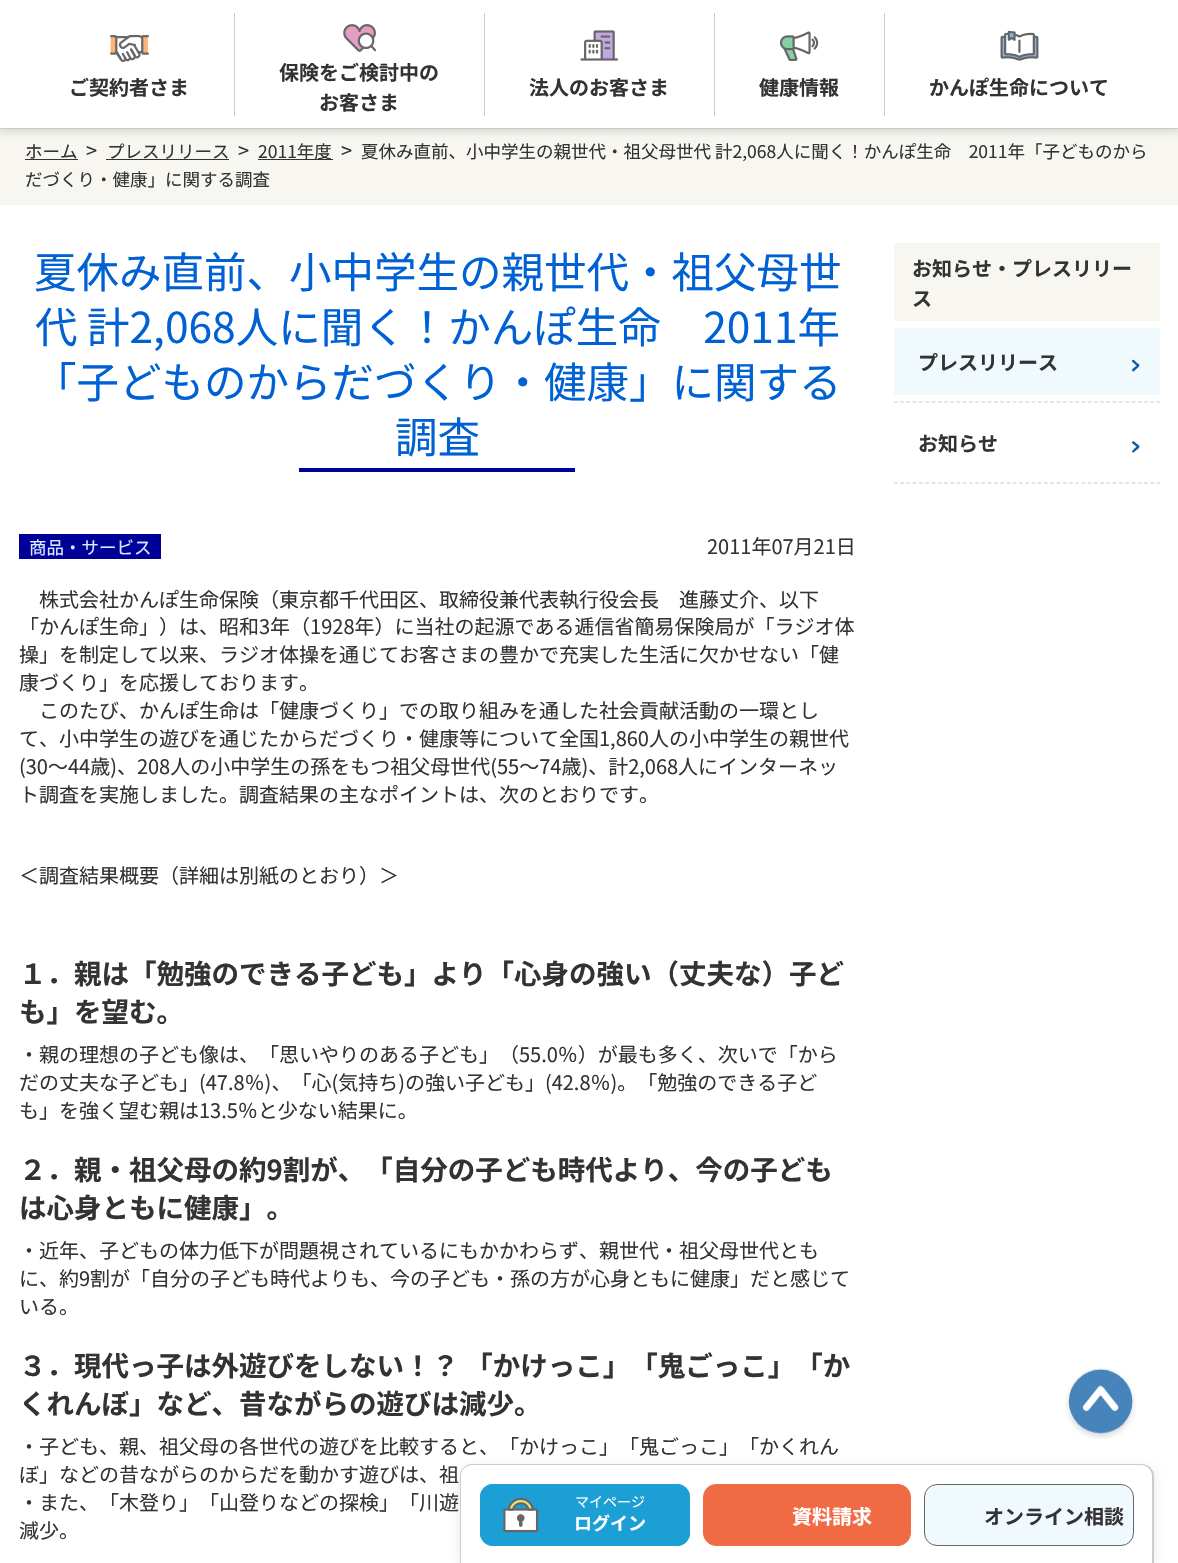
void draw(SkCanvas* canvas) {
  SkPaint paint;
  paint.setAntiAlias(true);
  auto face = [&](const char* family, int weight, float size, bool italic = false) {
    SkFontStyle style(weight, SkFontStyle::kNormal_Width,
      italic ? SkFontStyle::kItalic_Slant : SkFontStyle::kUpright_Slant);
    SkFont result(fontMgr->matchFamilyStyle(family, style), size);
    result.setSubpixel(true);
    return result;
  };
  auto paste = [&](const char* path, float x, float y, float w, float h) {
    auto image = SkImages::DeferredFromEncodedData(SkData::MakeFromFileName(path));
    canvas->drawImageRect(image, SkRect::MakeXYWH(x, y, w, h), SkSamplingOptions());
  };
  auto shape = [&](const char* data, bool evenOdd = false) {
    SkPath result = *SkParsePath::FromSVGString(data);
    if (evenOdd) result.setFillType(SkPathFillType::kEvenOdd);
    return result;
  };
  canvas->clear(0xffffffff);
  paint.setColor(0xfff7f6f0);
  canvas->drawRect(SkRect::MakeXYWH(0, 129, 1178, 76), paint);
  paint.setColor(0x1a000000);
  paint.setMaskFilter(SkMaskFilter::MakeBlur(kNormal_SkBlurStyle, 3));
  canvas->drawRect(SkRect::MakeXYWH(0, 4, 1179, 129), paint);
  paint.setMaskFilter(nullptr);
  paint.setColor(0xffffffff);
  canvas->drawRect(SkRect::MakeXYWH(0, 0, 1178, 128), paint);
  paint.setColor(0xffcccccc);
  canvas->drawRect(SkRect::MakeXYWH(234, 13, 1, 103), paint);
  paste("img/1.png", 110, 34, 39, 28);
  canvas->drawRect(SkRect::MakeXYWH(484, 13, 1, 103), paint);
  paste("img/2.png", 343, 24, 34, 28);
  canvas->drawRect(SkRect::MakeXYWH(714, 13, 1, 103), paint);
  paste("img/3.png", 580, 30, 39, 31);
  canvas->drawRect(SkRect::MakeXYWH(884, 13, 1, 103), paint);
  paste("img/4.png", 779, 31, 40, 30);
  paste("img/5.png", 1000, 30, 39, 31);
  canvas->drawRect(SkRect::MakeXYWH(0, 128, 1178, 1), paint);
  paste("img/6.png", 1065, 1368, 71, 71);
  paint.setColor(0x1a000000);
  paint.setMaskFilter(SkMaskFilter::MakeBlur(kNormal_SkBlurStyle, 6));
  canvas->drawRoundRect(SkRect::MakeXYWH(460, 1468, 694, 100), 13, 13, paint);
  paint.setMaskFilter(nullptr);
  paint.setColor(0xffffffff);
  canvas->drawPath(shape("M473 1464H1141C1148 1464 1154 1470 1154 1477V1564H460V1477C460 1470 466 1464 473 1464Z"), paint);
  paint.setColor(0xffcccccc);
  canvas->drawPath(shape("M472 1464H1141C1148 1464 1154 1469 1154 1476V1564H460V1476C460 1469 466 1464 472 1464ZM472 1465H1141C1147 1465 1152 1470 1152 1476V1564H461V1476C461 1470 466 1465 472 1465Z", true), paint);
  paint.setColor(0xff1b9fd4);
  canvas->drawRoundRect(SkRect::MakeXYWH(480, 1484, 210, 62), 13, 13, paint);
  paste("img/7.png", 503, 1497, 36, 36);
  paint.setStroke(true);
  paint.setStrokeWidth(1);
  canvas->drawRoundRect(SkRect::MakeXYWH(480.5f, 1484.5f, 209, 61), 12.5f, 12.5f, paint);
  paint.setStroke(false);
  paint.setColor(0xfff06a43);
  canvas->drawRoundRect(SkRect::MakeXYWH(703.5f, 1484.5f, 207, 61), 12.5f, 12.5f, paint);
  paint.setStroke(true);
  canvas->drawRoundRect(SkRect::MakeXYWH(703.5f, 1484.5f, 207, 61), 12.5f, 12.5f, paint);
  paint.setStroke(false);
  paint.setColor(0xfff0f9fd);
  canvas->drawRoundRect(SkRect::MakeXYWH(924.5f, 1484.5f, 209, 61), 12.5f, 12.5f, paint);
  paint.setStroke(true);
  paint.setColor(0xff666666);
  canvas->drawRoundRect(SkRect::MakeXYWH(924.5f, 1484.5f, 209, 61), 12.5f, 12.5f, paint);
  paint.setStroke(false);
  {
    const struct { float x, y, w, h; SkColor color; } items[] = {
      {25, 159, 53, 1, 0xff333333},
      {106, 159, 123, 1, 0xff333333},
      {258, 159, 75, 1, 0xff333333},
      {299, 468, 276, 4, 0xff000099},
      {19, 534, 142, 25, 0xff000099},
      {894, 243, 266, 78, 0xfff7f6f0},
    };
    for (auto [x, y, w, h, color] : items) {
      paint.setColor(color);
      canvas->drawRect(SkRect::MakeXYWH(x, y, w, h), paint);
    }
  }
  paint.setStroke(true);
  paint.setStrokeWidth(1.2f);
  paint.setColor(0xffcccccc);
  paint.setPathEffect(SkDashPathEffect::Make({{3.75f, 2.5f}}, 0));
  canvas->drawPath(shape("M894 402H1160"), paint);
  paint.setPathEffect(nullptr);
  paint.setStroke(false);
  paint.setColor(0xfff0f9fd);
  canvas->drawRect(SkRect::MakeXYWH(894, 328, 266, 67), paint);
  paint.setColor(0xff085ba6);
  canvas->drawPath(shape("M1132.5 369L1135.5 366.5C1136.5 366 1138 364 1139 365.5V366.5L1133.5 371.5C1132.5 371.5 1131.5 370 1132.5 369Z"), paint);
  canvas->drawPath(shape("M1134 360L1137 363C1138 363.5 1140.5 365 1139 366L1137.5 366.5L1132 361.5C1131.5 360.5 1133 359.5 1134 360Z"), paint);
  paint.setStroke(true);
  paint.setColor(0xffcccccc);
  paint.setPathEffect(SkDashPathEffect::Make({{3.75f, 2.5f}}, 0));
  canvas->drawPath(shape("M894 483H1160"), paint);
  paint.setPathEffect(nullptr);
  paint.setStroke(false);
  paint.setColor(0xff085ba6);
  canvas->drawPath(shape("M1132.5 450.5L1135.5 447.5C1136.5 447 1138 445 1139 447V448L1133.5 452.5C1132.5 453 1131.5 451.5 1132.5 450.5Z"), paint);
  canvas->drawPath(shape("M1134 441.5L1137 444C1138 444.5 1140.5 446 1139 447.5H1137.5L1132 443C1131.5 442 1133 440.5 1134 441.5Z"), paint);
  auto f0 = face("Noto Sans JP", 700, 20);
  paint.setColor(0xff333333);
  {
    const struct { const char* s; float x, y; } items[] = {
      {"ご契約者さま", 69, 95},
      {"保険をご検討中の", 279, 80},
      {"お客さま", 319, 110},
      {"法人のお客さま", 529, 95},
      {"健康情報", 759, 95},
      {"かんぽ生命について", 929, 95},
    };
    for (auto [s, x, y] : items) {
      canvas->drawString(s, x, y, f0, paint);
    }
  }
  auto f1 = face("Noto Sans JP", 400, 14);
  paint.setColor(0xffffffff);
  canvas->drawString("マイページ", 575, 1507, f1, paint);
  auto f2 = face("Noto Sans JP", 700, 18);
  canvas->drawString("ログイン", 574, 1530, f2, paint);
  canvas->drawString("資料請求", 792, 1524, f0, paint);
  paint.setColor(0xff333333);
  canvas->drawString("オンライン相談", 984, 1524, f0, paint);
  auto f3 = face("Noto Sans JP", 400, 17.5f);
  canvas->drawString("ホーム", 25, 158, f3, paint);
  auto f4 = face("Noto Sans JP", 400, 20);
  canvas->drawString(">", 86, 158, f4, paint);
  canvas->drawString("プレスリリース", 107, 158, f3, paint);
  canvas->drawString(">", 238, 158, f4, paint);
  canvas->drawString("2011年度", 258, 158, f3, paint);
  canvas->drawString(">", 341, 158, f4, paint);
  canvas->drawString("夏休み直前、小中学生の親世代・祖父母世代 計2,068人に聞く！かんぽ生命　2011年「子どものから", 361, 158, f3, paint);
  canvas->drawString("だづくり・健康」に関する調査", 25, 186, f3, paint);
  auto f5 = face("Noto Sans JP", 400, 42.5f);
  paint.setColor(0xff0061d5);
  {
    const struct { const char* s; float x, y; } items[] = {
      {"夏休み直前、小中学生の親世代・祖父母世", 34, 288},
      {"代 計2,068人に聞く！かんぽ生命　2011年", 35, 343},
      {"「子どものからだづくり・健康」に関する", 34, 398},
      {"調査", 395, 453},
    };
    for (auto [s, x, y] : items) {
      canvas->drawString(s, x, y, f5, paint);
    }
  }
  paint.setColor(0xffd4ecff);
  canvas->drawString("商品・サービス", 29, 554, f3, paint);
  paint.setColor(0xff333333);
  {
    const struct { const char* s; float x, y; } items[] = {
      {"2011年07月21日", 707, 554},
      {"株式会社かんぽ生命保険（東京都千代田区、取締役兼代表執行役会長　進藤丈介、以下", 39, 607},
      {"「かんぽ生命」）は、昭和3年（1928年）に当社の起源である逓信省簡易保険局が「ラジオ体", 19, 634},
      {"操」を制定して以来、ラジオ体操を通じてお客さまの豊かで充実した生活に欠かせない「健", 19, 662},
      {"康づくり」を応援しております。", 19, 690},
      {"このたび、かんぽ生命は「健康づくり」での取り組みを通した社会貢献活動の一環とし", 39, 718},
      {"て、小中学生の遊びを通じたからだづくり・健康等について全国1,860人の小中学生の親世代", 19, 746},
      {"(30～44歳)、208人の小中学生の孫をもつ祖父母世代(55～74歳)、計2,068人にインターネッ", 19, 774},
      {"ト調査を実施しました。調査結果の主なポイントは、次のとおりです。", 19, 802},
      {"＜調査結果概要（詳細は別紙のとおり）＞", 19, 883},
    };
    for (auto [s, x, y] : items) {
      canvas->drawString(s, x, y, f4, paint);
    }
  }
  auto f6 = face("Noto Sans JP", 700, 27.5f);
  canvas->drawString("１．親は「勉強のできる子ども」より「心身の強い（丈夫な）子ど", 19, 984, f6, paint);
  canvas->drawString("も」を望む。", 19, 1022, f6, paint);
  {
    const struct { const char* s; float x, y; } items[] = {
      {"・親の理想の子ども像は、「思いやりのある子ども」（55.0％）が最も多く、次いで「から", 19, 1062},
      {"だの丈夫な子ども」(47.8％)、「心(気持ち)の強い子ども」(42.8％)。「勉強のできる子ど", 19, 1090},
      {"も」を強く望む親は13.5％と少ない結果に。", 19, 1118},
    };
    for (auto [s, x, y] : items) {
      canvas->drawString(s, x, y, f4, paint);
    }
  }
  canvas->drawString("２．親・祖父母の約9割が、「自分の子ども時代より、今の子ども", 19, 1180, f6, paint);
  canvas->drawString("は心身ともに健康」。", 19, 1218, f6, paint);
  {
    const struct { const char* s; float x, y; } items[] = {
      {"・近年、子どもの体力低下が問題視されているにもかかわらず、親世代・祖父母世代とも", 19, 1258},
      {"に、約9割が「自分の子ども時代よりも、今の子ども・孫の方が心身ともに健康」だと感じて", 19, 1286},
      {"いる。", 19, 1314},
    };
    for (auto [s, x, y] : items) {
      canvas->drawString(s, x, y, f4, paint);
    }
  }
  canvas->drawString("３．現代っ子は外遊びをしない！？ 「かけっこ」「鬼ごっこ」「か", 19, 1376, f6, paint);
  canvas->drawString("くれんぼ」など、昔ながらの遊びは減少。", 19, 1414, f6, paint);
  {
    const struct { const char* s; float x, y; } items[] = {
      {"・子ども、親、祖父母の各世代の遊びを比較すると、「かけっこ」「鬼ごっこ」「かくれん", 19, 1454},
      {"ぼ」などの昔ながらのからだを動かす遊びは、祖", 19, 1482},
      {"・また、「木登り」「山登りなどの探検」「川遊", 19, 1510},
      {"減少。", 19, 1538},
    };
    for (auto [s, x, y] : items) {
      canvas->drawString(s, x, y, f4, paint);
    }
  }
  {
    const struct { const char* s; float x, y; } items[] = {
      {"お知らせ・プレスリリー", 912, 276},
      {"ス", 912, 306},
      {"プレスリリース", 918, 370},
      {"お知らせ", 918, 451},
    };
    for (auto [s, x, y] : items) {
      canvas->drawString(s, x, y, f0, paint);
    }
  }
}
